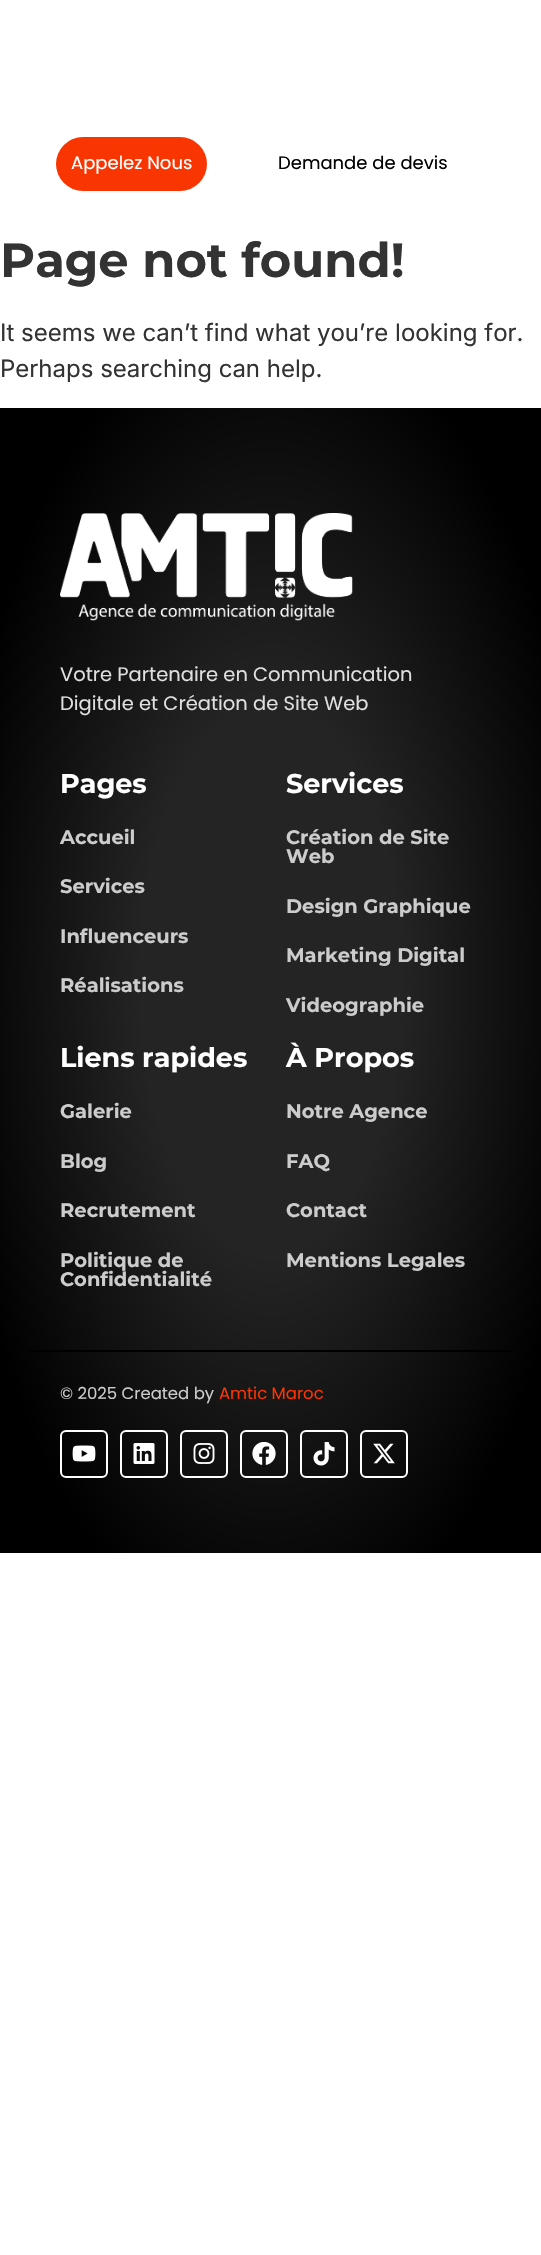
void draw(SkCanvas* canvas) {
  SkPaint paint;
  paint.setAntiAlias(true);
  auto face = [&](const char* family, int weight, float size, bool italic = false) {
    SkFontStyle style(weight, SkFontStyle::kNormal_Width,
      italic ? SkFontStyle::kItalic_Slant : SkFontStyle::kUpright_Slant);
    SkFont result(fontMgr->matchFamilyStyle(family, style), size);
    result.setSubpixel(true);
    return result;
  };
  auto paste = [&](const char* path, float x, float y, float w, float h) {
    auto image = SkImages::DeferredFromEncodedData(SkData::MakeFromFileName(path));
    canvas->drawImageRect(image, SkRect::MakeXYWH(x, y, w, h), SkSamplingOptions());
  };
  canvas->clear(0xffffffff);
  paint.setColor(0xfff93501);
  canvas->drawRoundRect(SkRect::MakeXYWH(56, 137, 151, 54), 27, 27, paint);
  {
    const SkColor colors[] = {0xff242424, 0xff000000};
    const float stops[] = {0.34f, 0.84f};
    SkMatrix m = SkMatrix::Translate(271, 980).preScale(383, 809);
    paint.setShader(SkGradientShader::MakeRadial({0, 0}, 1, colors, stops, 2, SkTileMode::kClamp, 0, &m));
    paint.setAlpha(255);
  }
  canvas->drawRect(SkRect::MakeXYWH(0, 408, 541, 1145), paint);
  paste("img/1.png", 60, 513, 293, 108);
  paint.setShader(nullptr);
  paint.setColor(0xff000000);
  canvas->drawRect(SkRect::MakeXYWH(30, 1350, 482, 2), paint);
  paint.setStroke(true);
  paint.setStrokeWidth(2);
  paint.setColor(0xffffffff);
  canvas->drawRoundRect(SkRect::MakeXYWH(61, 1431, 46, 46), 5, 5, paint);
  paste("img/2.png", 72, 1445, 24, 17);
  canvas->drawRoundRect(SkRect::MakeXYWH(121, 1431, 46, 46), 5, 5, paint);
  paste("img/3.png", 133, 1443, 22, 21);
  canvas->drawRoundRect(SkRect::MakeXYWH(181, 1431, 46, 46), 5, 5, paint);
  paste("img/4.png", 193, 1443, 22, 21);
  canvas->drawRoundRect(SkRect::MakeXYWH(241, 1431, 46, 46), 5, 5, paint);
  paste("img/5.png", 252, 1442, 24, 23);
  canvas->drawRoundRect(SkRect::MakeXYWH(301, 1431, 46, 46), 5, 5, paint);
  paste("img/6.png", 313, 1442, 22, 24);
  canvas->drawRoundRect(SkRect::MakeXYWH(361, 1431, 46, 46), 5, 5, paint);
  paste("img/7.png", 373, 1443, 22, 21);
  auto f0 = face("Poppins", 400, 18);
  paint.setStroke(false);
  canvas->drawString("Appelez Nous", 71, 169, f0, paint);
  paint.setColor(0xff000000);
  canvas->drawString("Demande de devis", 278, 169, f0, paint);
  auto f1 = face("Montserrat", 700, 48);
  paint.setColor(0xff333333);
  canvas->drawString("Page not found!", 0, 277, f1, paint);
  auto f2 = face("Inter", 400, 24);
  canvas->drawString("It seems we can’t find what you’re looking for.", 0, 341, f2, paint);
  canvas->drawString("Perhaps searching can help.", 0, 377, f2, paint);
  auto f3 = face("Poppins", 400, 19.5f);
  paint.setColor(0xffdfdfdf);
  canvas->drawString("Votre Partenaire en Communication", 60, 681, f3, paint);
  canvas->drawString("Digitale et Création de Site Web", 60, 710, f3, paint);
  auto f4 = face("Montserrat", 700, 27);
  paint.setColor(0xffffffff);
  canvas->drawString("Pages", 60, 793, f4, paint);
  auto f5 = face("Montserrat", 700, 19.5f);
  paint.setColor(0xffcccccc);
  {
    const struct { const char* s; float x, y; } items[] = {
      {"Accueil", 60, 844},
      {"Services", 60, 893},
      {"Influenceurs", 60, 943},
      {"Réalisations", 60, 992},
    };
    for (auto [s, x, y] : items) {
      canvas->drawString(s, x, y, f5, paint);
    }
  }
  paint.setColor(0xffffffff);
  canvas->drawString("Services", 286, 793, f4, paint);
  paint.setColor(0xffcccccc);
  {
    const struct { const char* s; float x, y; } items[] = {
      {"Création de Site", 286, 844},
      {"Web", 286, 863},
      {"Design Graphique", 286, 913},
      {"Marketing Digital", 286, 962},
      {"Videographie", 286, 1012},
    };
    for (auto [s, x, y] : items) {
      canvas->drawString(s, x, y, f5, paint);
    }
  }
  paint.setColor(0xffffffff);
  canvas->drawString("Liens rapides", 60, 1067, f4, paint);
  paint.setColor(0xffcccccc);
  {
    const struct { const char* s; float x, y; } items[] = {
      {"Galerie", 60, 1118},
      {"Blog", 60, 1168},
      {"Recrutement", 60, 1217},
      {"Politique de", 60, 1267},
      {"Confidentialité", 60, 1286},
    };
    for (auto [s, x, y] : items) {
      canvas->drawString(s, x, y, f5, paint);
    }
  }
  paint.setColor(0xffffffff);
  canvas->drawString("À Propos", 286, 1067, f4, paint);
  paint.setColor(0xffcccccc);
  {
    const struct { const char* s; float x, y; } items[] = {
      {"Notre Agence", 286, 1118},
      {"FAQ", 286, 1168},
      {"Contact", 286, 1217},
      {"Mentions Legales", 286, 1267},
    };
    for (auto [s, x, y] : items) {
      canvas->drawString(s, x, y, f5, paint);
    }
  }
  auto f6 = face("Poppins", 400, 16.5f);
  canvas->drawString("© 2025 Created by", 60, 1399, f6, paint);
  paint.setColor(0xfff93501);
  canvas->drawString("Amtic Maroc", 219, 1399, f6, paint);
}
